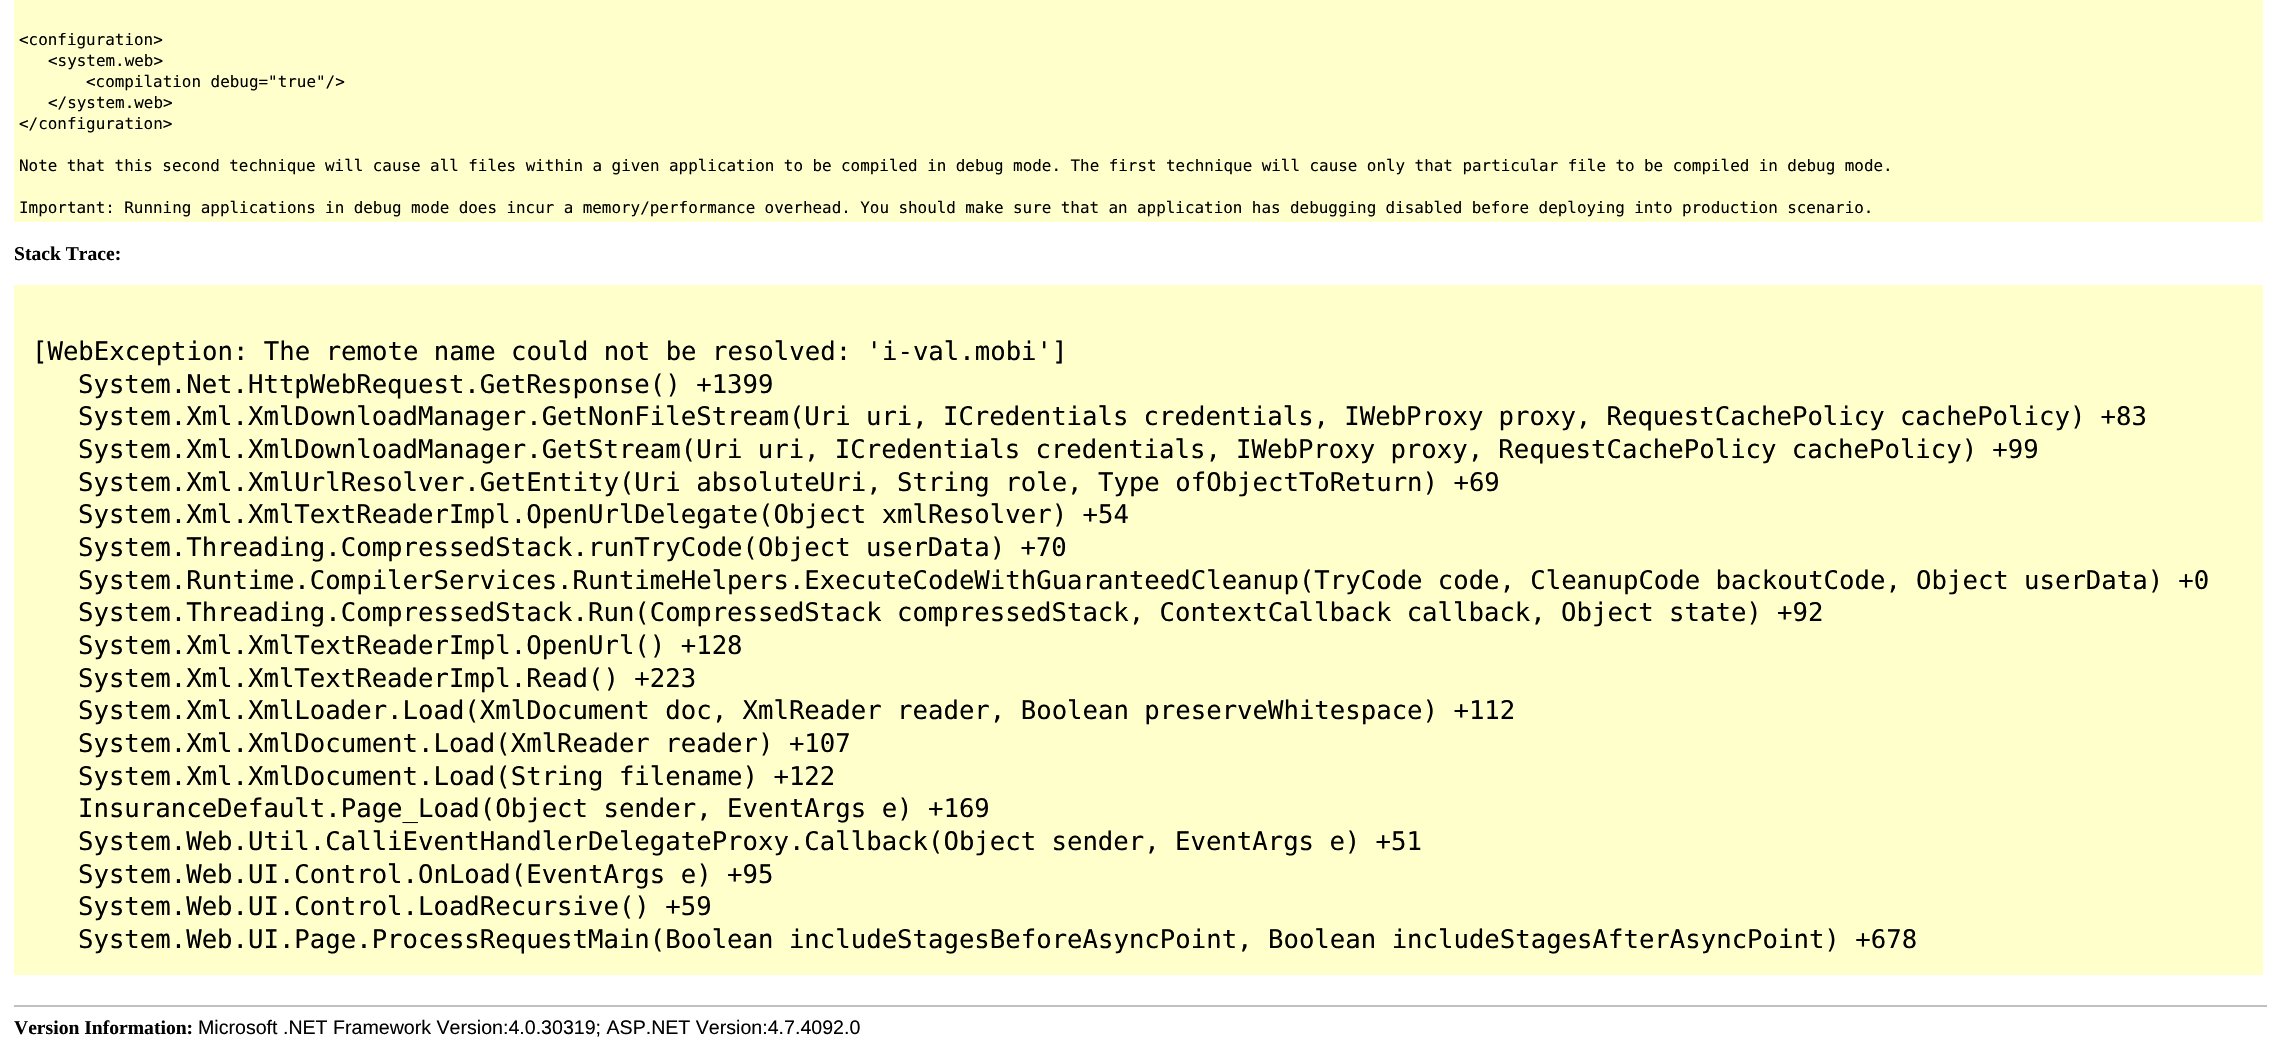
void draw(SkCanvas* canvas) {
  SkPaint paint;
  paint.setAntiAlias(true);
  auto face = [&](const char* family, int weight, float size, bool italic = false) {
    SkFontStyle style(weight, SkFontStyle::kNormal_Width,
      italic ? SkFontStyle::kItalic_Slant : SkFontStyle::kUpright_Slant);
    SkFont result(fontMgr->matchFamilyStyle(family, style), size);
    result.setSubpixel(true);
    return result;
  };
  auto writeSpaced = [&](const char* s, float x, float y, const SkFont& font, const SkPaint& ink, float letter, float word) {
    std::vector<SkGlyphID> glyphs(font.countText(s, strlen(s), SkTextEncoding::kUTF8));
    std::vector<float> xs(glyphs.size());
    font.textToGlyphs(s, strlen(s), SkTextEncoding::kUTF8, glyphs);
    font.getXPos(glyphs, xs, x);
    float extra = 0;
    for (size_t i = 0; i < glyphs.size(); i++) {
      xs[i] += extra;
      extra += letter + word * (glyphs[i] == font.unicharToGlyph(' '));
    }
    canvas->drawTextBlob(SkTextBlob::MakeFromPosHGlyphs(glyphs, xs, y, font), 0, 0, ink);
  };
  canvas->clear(0xffffffff);
  {
    const struct { float x, y, w, h; SkColor color; } items[] = {
      {14, 0, 2249, 222, 0xffffffcc},
      {14, 285, 2249, 690, 0xffffffcc},
      {14, 1005, 2253, 2, 0xffc0c0c0},
    };
    for (auto [x, y, w, h, color] : items) {
      paint.setColor(color);
      canvas->drawRect(SkRect::MakeXYWH(x, y, w, h), paint);
    }
  }
  auto f0 = face("DejaVu Sans Mono", 400, 15.92f);
  paint.setColor(0xff000000);
  {
    const struct { const char* s; float x, y; } items[] = {
      {"<configuration>", 19, 45},
      {"<system.web>", 48, 66},
      {"<compilation debug=\"true\"/>", 86, 87},
      {"</system.web>", 48, 108},
      {"</configuration>", 19, 129},
    };
    for (auto [s, x, y] : items) {
      canvas->drawString(s, x, y, f0, paint);
    }
  }
  writeSpaced("Note that this second technique will cause all files within a given application to be compiled in debug mode. The first technique will cause only that particular file to be compiled in debug mode.", 19, 171, f0, paint, 0, -0.15f);
  writeSpaced("Important: Running applications in debug mode does incur a memory/performance overhead. You should make sure that an application has debugging disabled before deploying into production scenario.", 19, 213, f0, paint, 0, -0.2f);
  auto f1 = face("Liberation Serif", 700, 19.6f);
  canvas->drawString("Stack Trace:", 14, 260, f1, paint);
  auto f2 = face("DejaVu Sans Mono", 400, 25.67f);
  canvas->drawString("[WebException: The remote name could not be resolved: 'i-val.mobi']", 32, 360, f2, paint);
  canvas->drawString("System.Net.HttpWebRequest.GetResponse() +1399", 78, 393, f2, paint);
  writeSpaced("System.Xml.XmlDownloadManager.GetNonFileStream(Uri uri, ICredentials credentials, IWebProxy proxy, RequestCachePolicy cachePolicy) +83", 78, 425, f2, paint, 0, -0.25f);
  writeSpaced("System.Xml.XmlDownloadManager.GetStream(Uri uri, ICredentials credentials, IWebProxy proxy, RequestCachePolicy cachePolicy) +99", 78, 458, f2, paint, 0, -0.25f);
  canvas->drawString("System.Xml.XmlUrlResolver.GetEntity(Uri absoluteUri, String role, Type ofObjectToReturn) +69", 78, 491, f2, paint);
  canvas->drawString("System.Xml.XmlTextReaderImpl.OpenUrlDelegate(Object xmlResolver) +54", 78, 523, f2, paint);
  writeSpaced("System.Threading.CompressedStack.runTryCode(Object userData) +70", 78, 556, f2, paint, 0, -0.15f);
  writeSpaced("System.Runtime.CompilerServices.RuntimeHelpers.ExecuteCodeWithGuaranteedCleanup(TryCode code, CleanupCode backoutCode, Object userData) +0", 78, 589, f2, paint, 0, -0.25f);
  writeSpaced("System.Threading.CompressedStack.Run(CompressedStack compressedStack, ContextCallback callback, Object state) +92", 78, 621, f2, paint, 0, -0.15f);
  {
    const struct { const char* s; float x, y; } items[] = {
      {"System.Xml.XmlTextReaderImpl.OpenUrl() +128", 78, 654},
      {"System.Xml.XmlTextReaderImpl.Read() +223", 78, 687},
      {"System.Xml.XmlLoader.Load(XmlDocument doc, XmlReader reader, Boolean preserveWhitespace) +112", 78, 719},
      {"System.Xml.XmlDocument.Load(XmlReader reader) +107", 78, 752},
      {"System.Xml.XmlDocument.Load(String filename) +122", 78, 785},
      {"InsuranceDefault.Page_Load(Object sender, EventArgs e) +169", 78, 817},
    };
    for (auto [s, x, y] : items) {
      canvas->drawString(s, x, y, f2, paint);
    }
  }
  writeSpaced("System.Web.Util.CalliEventHandlerDelegateProxy.Callback(Object sender, EventArgs e) +51", 78, 850, f2, paint, 0, -0.15f);
  {
    const struct { const char* s; float x, y; } items[] = {
      {"System.Web.UI.Control.OnLoad(EventArgs e) +95", 78, 883},
      {"System.Web.UI.Control.LoadRecursive() +59", 78, 915},
      {"System.Web.UI.Page.ProcessRequestMain(Boolean includeStagesBeforeAsyncPoint, Boolean includeStagesAfterAsyncPoint) +678", 78, 948},
    };
    for (auto [s, x, y] : items) {
      canvas->drawString(s, x, y, f2, paint);
    }
  }
  canvas->drawString("Version Information:", 14, 1034, f1, paint);
  auto f3 = face("Liberation Sans", 400, 19.6f);
  canvas->drawString("Microsoft .NET Framework Version:4.0.30319; ASP.NET Version:4.7.4092.0", 198, 1034, f3, paint);
}
